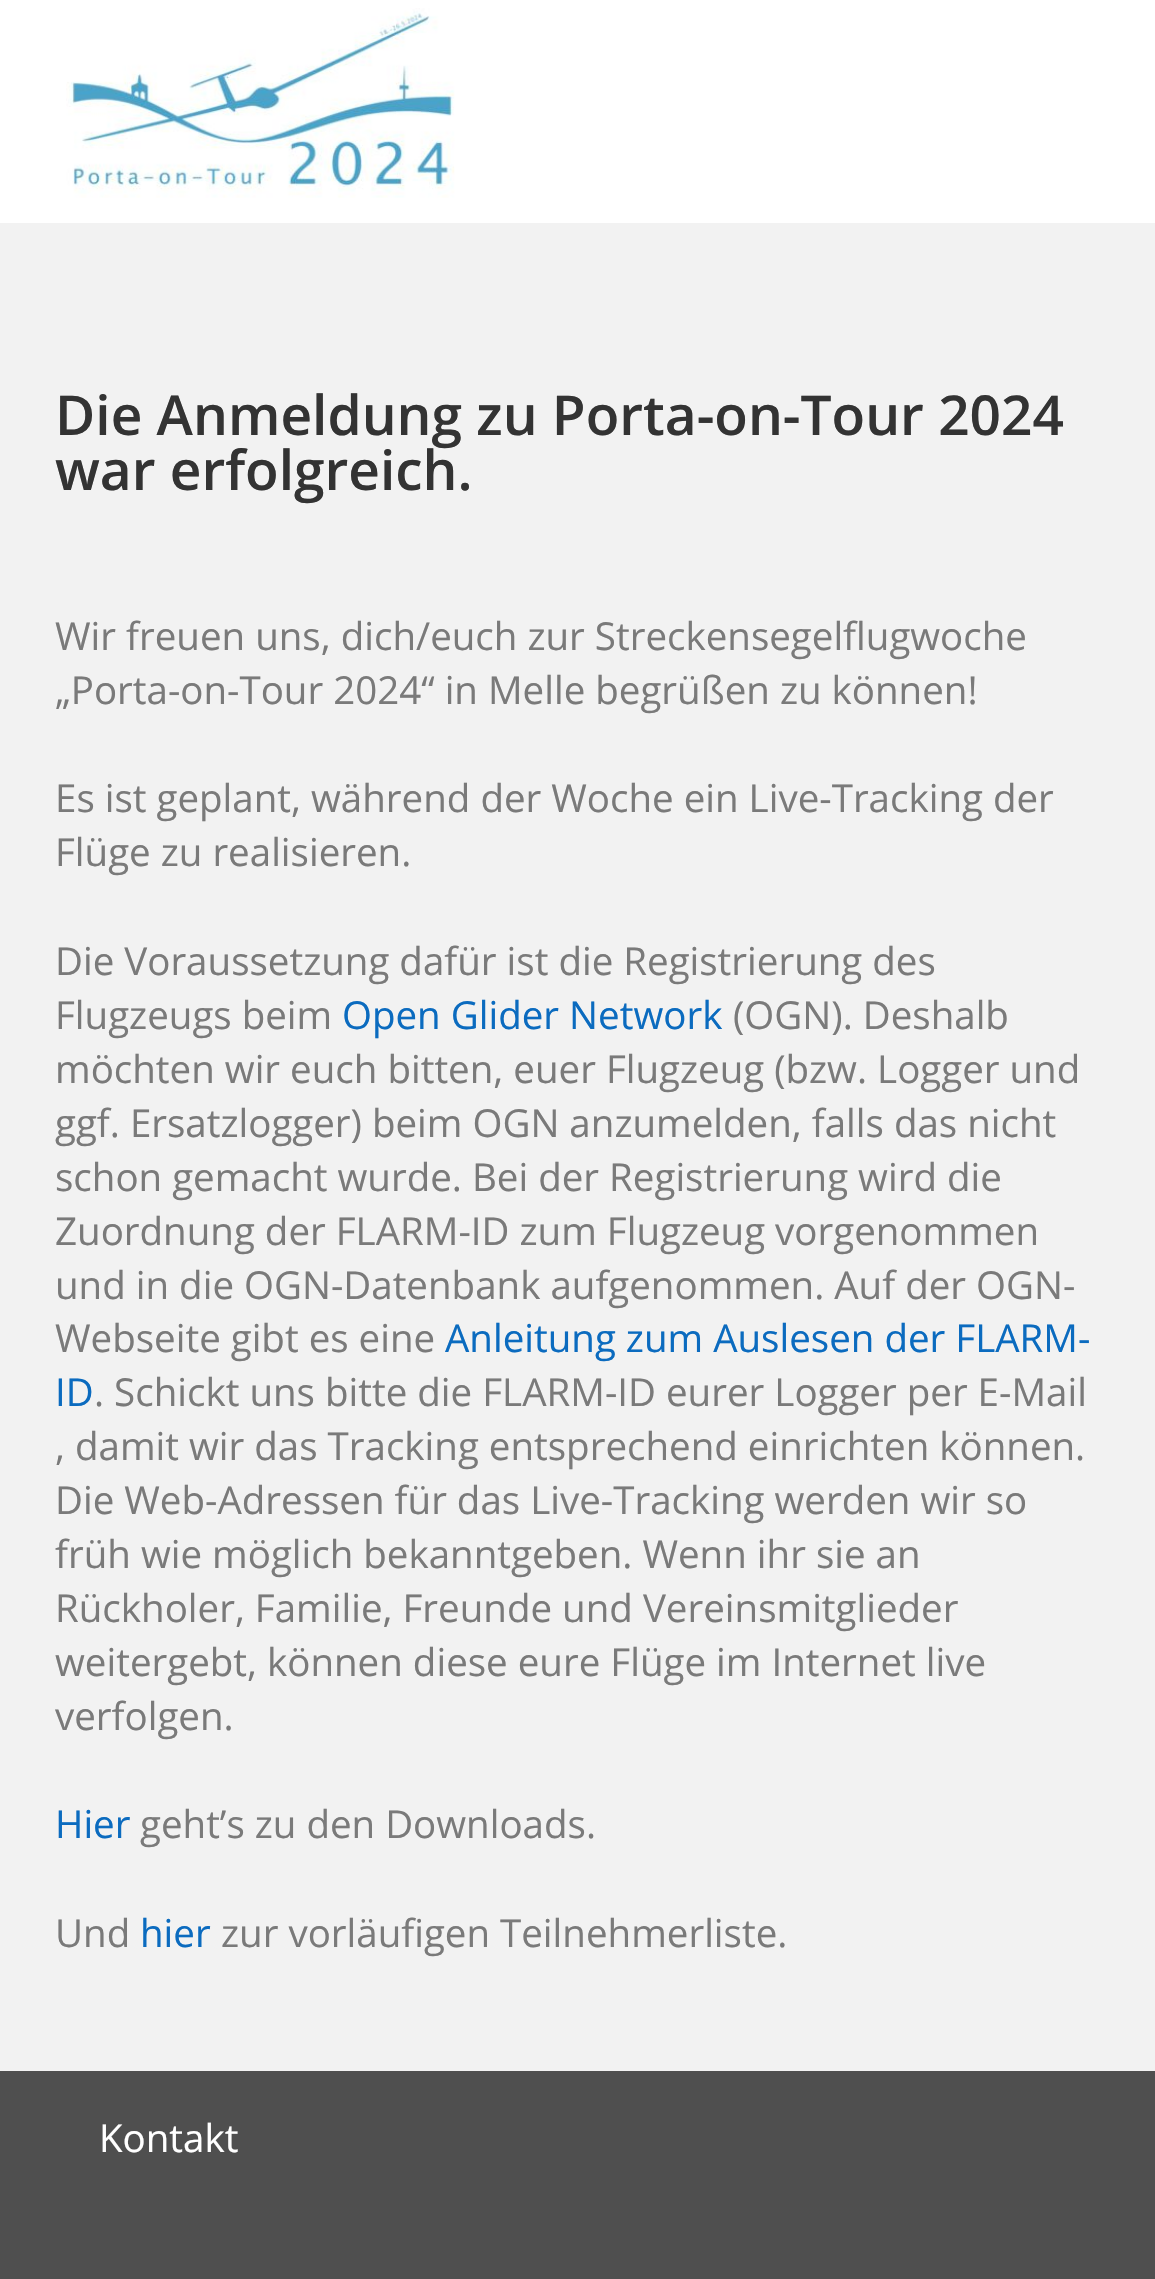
void draw(SkCanvas* canvas) {
  SkPaint paint;
  paint.setAntiAlias(true);
  auto face = [&](const char* family, int weight, float size, bool italic = false) {
    SkFontStyle style(weight, SkFontStyle::kNormal_Width,
      italic ? SkFontStyle::kItalic_Slant : SkFontStyle::kUpright_Slant);
    SkFont result(fontMgr->matchFamilyStyle(family, style), size);
    result.setSubpixel(true);
    return result;
  };
  auto paste = [&](const char* path, float x, float y, float w, float h) {
    auto image = SkImages::DeferredFromEncodedData(SkData::MakeFromFileName(path));
    canvas->drawImageRect(image, SkRect::MakeXYWH(x, y, w, h), SkSamplingOptions());
  };
  canvas->clear(0xfff2f2f2);
  paint.setColor(0xffffffff);
  canvas->drawRect(SkRect::MakeXYWH(0, 0, 1155, 223), paint);
  paste("img/1.png", 66, 8, 389, 190);
  paint.setColor(0xff4f4f4f);
  canvas->drawRect(SkRect::MakeXYWH(0, 2071, 1155, 208), paint);
  auto f0 = face("Open Sans", 600, 55);
  paint.setColor(0xff333333);
  canvas->drawString("Die Anmeldung zu Porta-on-Tour 2024", 55, 435, f0, paint);
  canvas->drawString("war erfolgreich.", 55, 490, f0, paint);
  auto f1 = face("Open Sans", 400, 38.5f);
  paint.setColor(0xff7a7a7a);
  {
    const struct { const char* s; float x, y; } items[] = {
      {"Wir freuen uns, dich/euch zur Streckensegelflugwoche", 55, 650},
      {"„Porta-on-Tour 2024“ in Melle begrüßen zu können!", 55, 704},
      {"Es ist geplant, während der Woche ein Live-Tracking der", 55, 812},
      {"Flüge zu realisieren.", 55, 866},
      {"Die Voraussetzung dafür ist die Registrierung des", 55, 975},
      {"Flugzeugs beim", 55, 1029},
    };
    for (auto [s, x, y] : items) {
      canvas->drawString(s, x, y, f1, paint);
    }
  }
  paint.setColor(0xff0b6bbf);
  canvas->drawString("Open Glider Network", 342, 1029, f1, paint);
  paint.setColor(0xff7a7a7a);
  {
    const struct { const char* s; float x, y; } items[] = {
      {"(OGN). Deshalb", 733, 1029},
      {"möchten wir euch bitten, euer Flugzeug (bzw. Logger und", 55, 1083},
      {"ggf. Ersatzlogger) beim OGN anzumelden, falls das nicht", 55, 1137},
      {"schon gemacht wurde. Bei der Registrierung wird die", 55, 1191},
      {"Zuordnung der FLARM-ID zum Flugzeug vorgenommen", 55, 1245},
      {"und in die OGN-Datenbank aufgenommen. Auf der OGN-", 55, 1299},
      {"Webseite gibt es eine", 55, 1352},
    };
    for (auto [s, x, y] : items) {
      canvas->drawString(s, x, y, f1, paint);
    }
  }
  paint.setColor(0xff0b6bbf);
  canvas->drawString("Anleitung zum Auslesen der FLARM-", 445, 1352, f1, paint);
  canvas->drawString("ID", 55, 1406, f1, paint);
  paint.setColor(0xff7a7a7a);
  {
    const struct { const char* s; float x, y; } items[] = {
      {". Schickt uns bitte die FLARM-ID eurer Logger per E-Mail", 94, 1406},
      {", damit wir das Tracking entsprechend einrichten können.", 55, 1460},
      {"Die Web-Adressen für das Live-Tracking werden wir so", 55, 1514},
      {"früh wie möglich bekanntgeben. Wenn ihr sie an", 55, 1568},
      {"Rückholer, Familie, Freunde und Vereinsmitglieder", 55, 1622},
      {"weitergebt, können diese eure Flüge im Internet live", 55, 1676},
      {"verfolgen.", 55, 1730},
    };
    for (auto [s, x, y] : items) {
      canvas->drawString(s, x, y, f1, paint);
    }
  }
  paint.setColor(0xff0b6bbf);
  canvas->drawString("Hier", 55, 1838, f1, paint);
  paint.setColor(0xff7a7a7a);
  canvas->drawString("geht’s zu den Downloads.", 140, 1838, f1, paint);
  canvas->drawString("Und", 55, 1947, f1, paint);
  paint.setColor(0xff0b6bbf);
  canvas->drawString("hier", 140, 1947, f1, paint);
  paint.setColor(0xff7a7a7a);
  canvas->drawString("zur vorläufigen Teilnehmerliste.", 221, 1947, f1, paint);
  paint.setColor(0xffffffff);
  canvas->drawString("Kontakt", 99, 2152, f1, paint);
}
